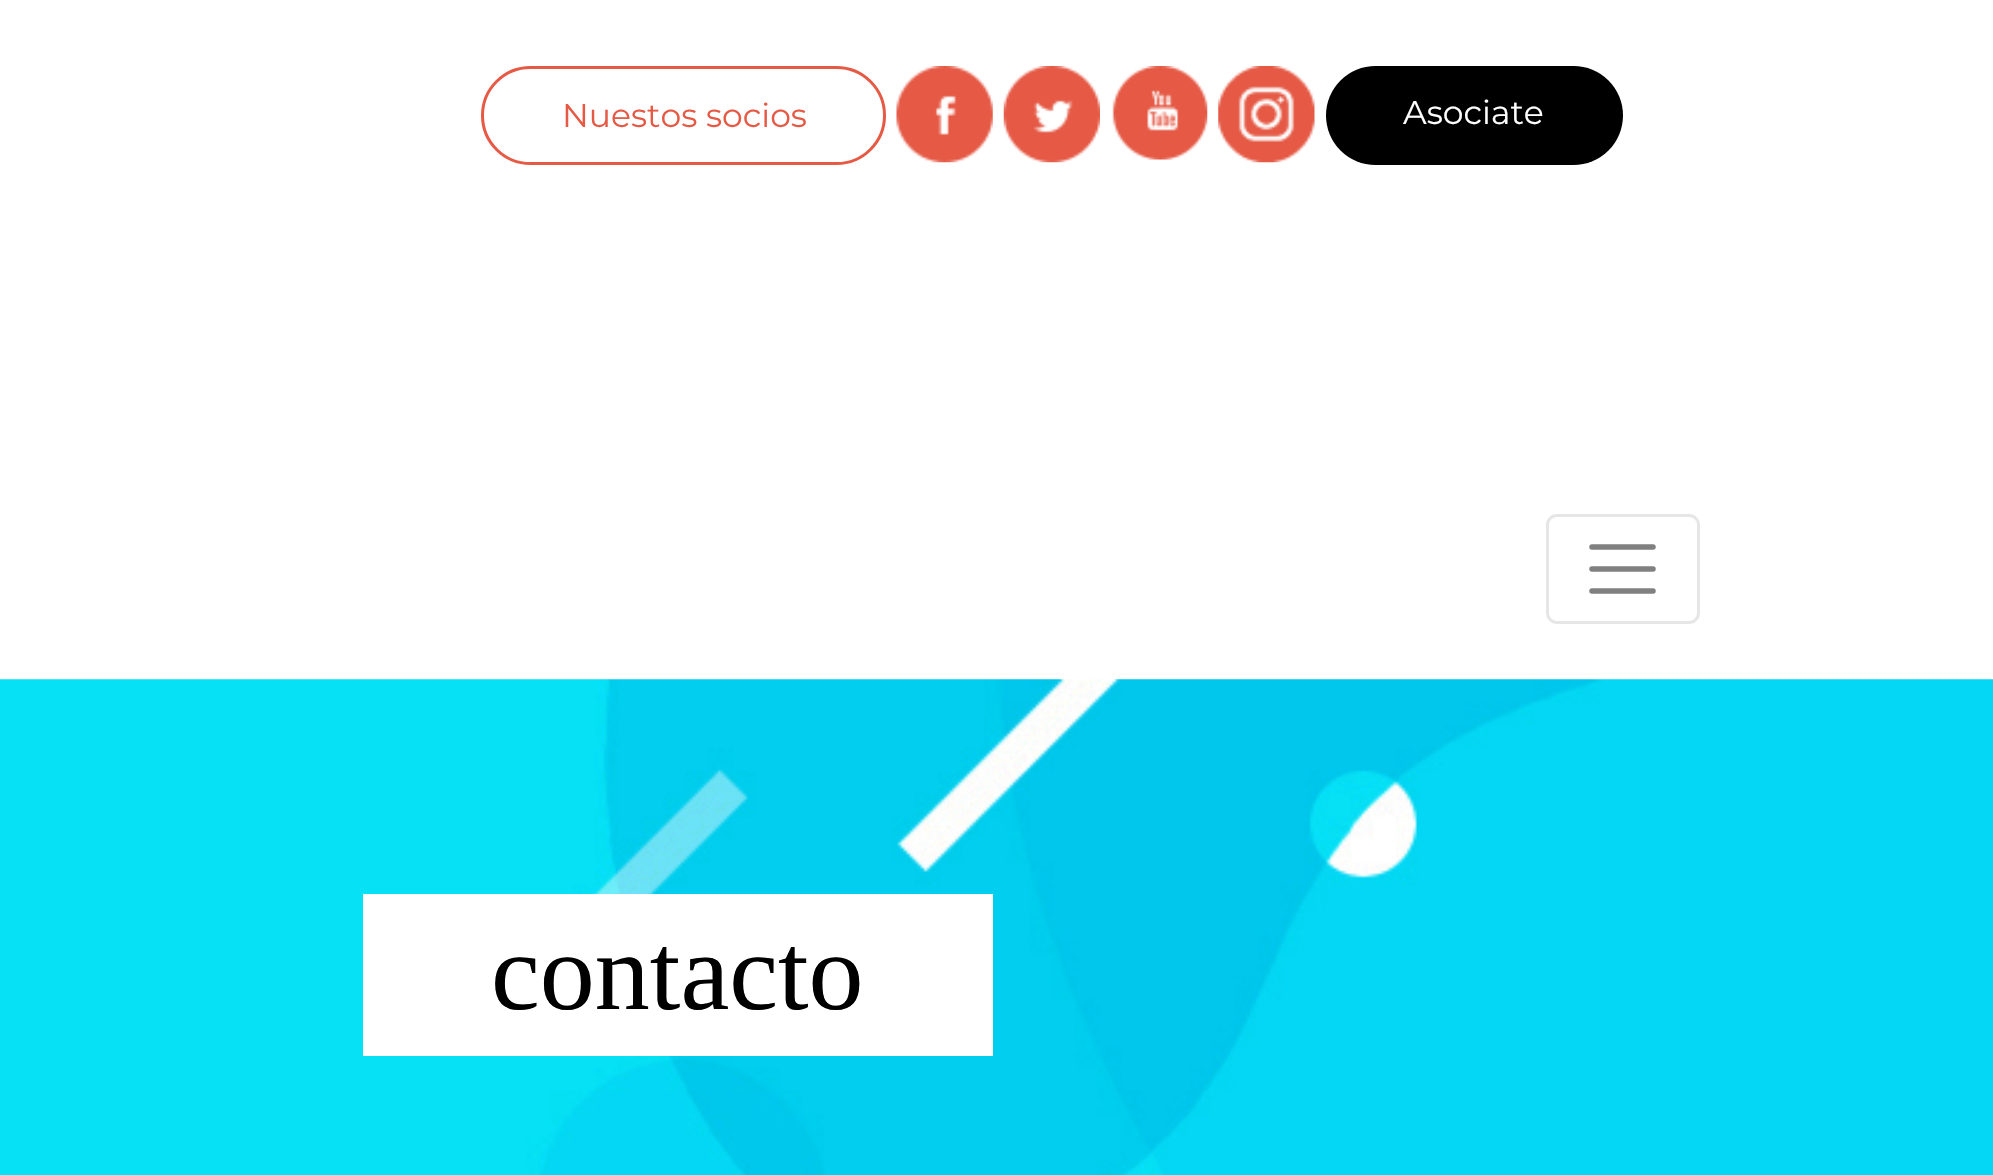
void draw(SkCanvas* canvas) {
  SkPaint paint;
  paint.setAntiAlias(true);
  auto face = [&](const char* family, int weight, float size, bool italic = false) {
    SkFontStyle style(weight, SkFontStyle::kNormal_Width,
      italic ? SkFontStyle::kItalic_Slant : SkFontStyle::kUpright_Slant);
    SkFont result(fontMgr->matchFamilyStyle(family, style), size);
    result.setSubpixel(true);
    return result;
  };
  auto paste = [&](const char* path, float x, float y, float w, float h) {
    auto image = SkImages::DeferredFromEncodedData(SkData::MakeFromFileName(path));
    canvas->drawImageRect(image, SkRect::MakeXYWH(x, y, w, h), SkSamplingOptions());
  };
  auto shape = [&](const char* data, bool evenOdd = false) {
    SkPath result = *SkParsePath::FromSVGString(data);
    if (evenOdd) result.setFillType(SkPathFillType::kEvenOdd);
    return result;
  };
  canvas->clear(0xffffffff);
  paint.setStroke(true);
  paint.setStrokeWidth(3);
  paint.setColor(0xffe55945);
  canvas->drawRoundRect(SkRect::MakeXYWH(482.5f, 67.5f, 402, 96), 48, 48, paint);
  paste("img/1.png", 896, 66, 97, 97);
  paste("img/2.png", 1003, 66, 97, 97);
  paste("img/3.png", 1112, 66, 96, 94);
  paste("img/4.png", 1218, 66, 97, 97);
  paint.setStroke(false);
  paint.setColor(0xff000000);
  canvas->drawRoundRect(SkRect::MakeXYWH(1326, 66, 297, 99), 49.5f, 49.5f, paint);
  paint.setStroke(true);
  paint.setColor(0xffe6e6e6);
  canvas->drawRoundRect(SkRect::MakeXYWH(1547.5f, 515.5f, 151, 107), 9.5f, 9.5f, paint);
  paint.setStrokeWidth(5.5f);
  paint.setStrokeCap(SkPaint::kRound_Cap);
  paint.setColor(0xff808080);
  canvas->drawPath(shape("M1592 547H1653M1592 569H1653M1592 591H1653"), paint);
  paste("img/5.png", 0, 679, 1993, 496);
  paint.setStroke(false);
  paint.setColor(0xffffffff);
  canvas->drawRect(SkRect::MakeXYWH(363, 894, 630, 162), paint);
  auto f0 = face("Montserrat", 100, 33);
  paint.setColor(0xffe55945);
  canvas->drawString("Nuestos socios", 562, 127, f0, paint);
  paint.setColor(0xffffffff);
  canvas->drawString("Asociate", 1403, 124, f0, paint);
  auto f1 = face("Liberation Serif", 400, 110);
  paint.setColor(0xff000000);
  canvas->drawString("contacto", 491, 1009, f1, paint);
}
